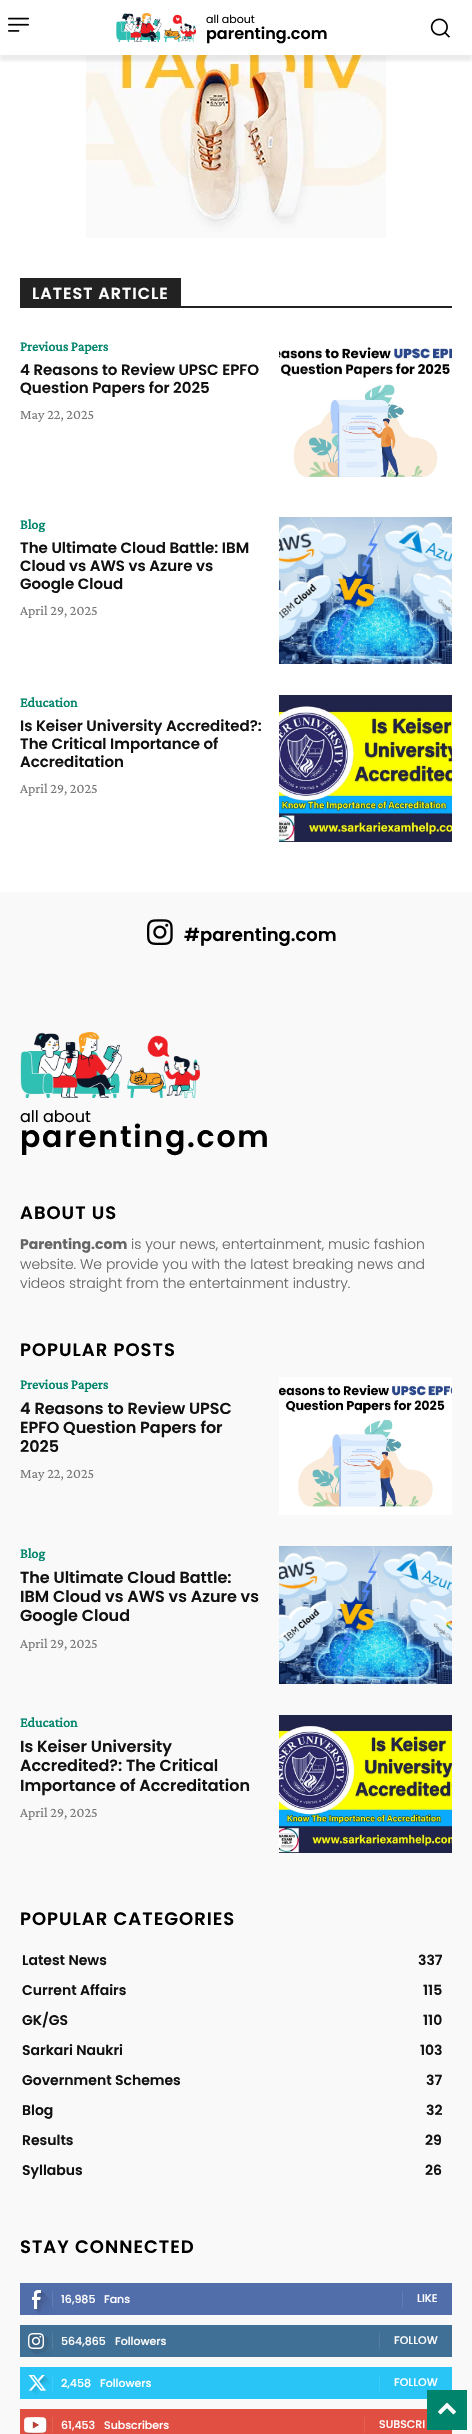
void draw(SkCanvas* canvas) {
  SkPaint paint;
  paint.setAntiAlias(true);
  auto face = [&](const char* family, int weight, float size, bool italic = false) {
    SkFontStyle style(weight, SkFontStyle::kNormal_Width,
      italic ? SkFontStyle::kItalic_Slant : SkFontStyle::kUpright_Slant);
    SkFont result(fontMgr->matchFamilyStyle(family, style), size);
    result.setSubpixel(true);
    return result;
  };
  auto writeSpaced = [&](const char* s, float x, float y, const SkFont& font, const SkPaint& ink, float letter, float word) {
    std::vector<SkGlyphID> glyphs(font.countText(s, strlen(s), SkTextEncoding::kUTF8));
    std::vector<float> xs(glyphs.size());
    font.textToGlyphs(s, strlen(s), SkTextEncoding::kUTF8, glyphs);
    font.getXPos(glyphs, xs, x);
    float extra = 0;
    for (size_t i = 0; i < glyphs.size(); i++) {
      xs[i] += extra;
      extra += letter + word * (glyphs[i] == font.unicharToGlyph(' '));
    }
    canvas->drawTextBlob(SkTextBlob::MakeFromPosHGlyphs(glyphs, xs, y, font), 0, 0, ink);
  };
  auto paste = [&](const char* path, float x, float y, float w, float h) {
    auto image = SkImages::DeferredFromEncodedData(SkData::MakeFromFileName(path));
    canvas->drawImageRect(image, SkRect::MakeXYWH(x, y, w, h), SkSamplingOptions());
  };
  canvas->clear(0xffffffff);
  paste("img/1.png", 8, 17, 21, 15);
  paste("img/2.png", 116, 13, 80, 29);
  paste("img/3.png", 430, 18, 20, 20);
  paste("img/4.png", 86, 55, 300, 183);
  canvas->save();
  canvas->clipRect(SkRect::MakeXYWH(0, 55, 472, 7));
  paint.setColor(0x14000000);
  paint.setMaskFilter(SkMaskFilter::MakeBlur(kNormal_SkBlurStyle, 2));
  canvas->drawRect(SkRect::MakeXYWH(0, 6, 472, 55), paint);
  paint.setMaskFilter(nullptr);
  canvas->restore();
  paint.setColor(0xff222222);
  canvas->drawRect(SkRect::MakeXYWH(20, 306, 432, 2), paint);
  canvas->drawRect(SkRect::MakeXYWH(20, 278, 161, 28), paint);
  paste("img/5.png", 279, 347, 173, 130);
  paste("img/6.png", 279, 517, 173, 147);
  paste("img/7.png", 279, 695, 173, 147);
  paint.setColor(0xfff9f9f9);
  canvas->drawRect(SkRect::MakeXYWH(0, 892, 472, 1542), paint);
  paste("img/8.png", 147, 919, 26, 26);
  paste("img/9.png", 20, 1032, 180, 66);
  paste("img/10.png", 279, 1377, 173, 138);
  paste("img/11.png", 279, 1546, 173, 138);
  paste("img/12.png", 279, 1715, 173, 138);
  paint.setColor(0xff516eab);
  canvas->drawRect(SkRect::MakeXYWH(20, 2283, 432, 32), paint);
  paste("img/13.png", 32, 2290, 20, 25);
  {
    const struct { float x, y, w, h; SkColor color; } items[] = {
      {52, 2291, 1, 16, 0xff627db3},
      {402, 2291, 1, 16, 0xff627db3},
      {20, 2325, 432, 32, 0xff417096},
    };
    for (auto [x, y, w, h, color] : items) {
      paint.setColor(color);
      canvas->drawRect(SkRect::MakeXYWH(x, y, w, h), paint);
    }
  }
  paste("img/14.png", 28, 2333, 23, 23);
  {
    const struct { float x, y, w, h; SkColor color; } items[] = {
      {52, 2333, 1, 16, 0xff547ea1},
      {379, 2333, 1, 16, 0xff547ea1},
      {20, 2367, 432, 32, 0xff29c5f6},
    };
    for (auto [x, y, w, h, color] : items) {
      paint.setColor(color);
      canvas->drawRect(SkRect::MakeXYWH(x, y, w, h), paint);
    }
  }
  paste("img/15.png", 28, 2375, 23, 21);
  {
    const struct { float x, y, w, h; SkColor color; } items[] = {
      {52, 2375, 1, 16, 0xff3ecbf7},
      {379, 2375, 1, 16, 0xff3ecbf7},
      {20, 2409, 432, 25, 0xffe14e42},
    };
    for (auto [x, y, w, h, color] : items) {
      paint.setColor(color);
      canvas->drawRect(SkRect::MakeXYWH(x, y, w, h), paint);
    }
  }
  paste("img/16.png", 24, 2417, 27, 17);
  {
    const struct { float x, y, w, h; SkColor color; } items[] = {
      {52, 2417, 1, 16, 0xffe46055},
      {364, 2417, 1, 16, 0xffe46055},
      {427, 2390, 40, 40, 0xff00846b},
    };
    for (auto [x, y, w, h, color] : items) {
      paint.setColor(color);
      canvas->drawRect(SkRect::MakeXYWH(x, y, w, h), paint);
    }
  }
  paste("img/17.png", 438, 2402, 18, 13);
  auto f0 = face("Poppins", 400, 11);
  paint.setColor(0xff000000);
  canvas->drawString("all about", 206, 23, f0, paint);
  auto f1 = face("Poppins", 600, 16);
  canvas->drawString("parenting.com", 206, 39, f1, paint);
  paint.setColor(0xffffffff);
  writeSpaced("LATEST ARTICLE", 32, 299, f1, paint, 1, 0);
  auto f2 = face("Crimson Pro", 700, 14);
  paint.setColor(0xff00846b);
  canvas->drawString("Previous Papers", 20, 351, f2, paint);
  auto f3 = face("Poppins", 600, 15);
  paint.setColor(0xff111111);
  canvas->drawString("4 Reasons to Review UPSC EPFO", 20, 375, f3, paint);
  canvas->drawString("Question Papers for 2025", 20, 393, f3, paint);
  auto f4 = face("Crimson Pro", 400, 14);
  paint.setColor(0xff767676);
  canvas->drawString("May 22, 2025", 20, 419, f4, paint);
  paint.setColor(0xff00846b);
  canvas->drawString("Blog", 20, 529, f2, paint);
  paint.setColor(0xff111111);
  {
    const struct { const char* s; float x, y; } items[] = {
      {"The Ultimate Cloud Battle: IBM", 20, 553},
      {"Cloud vs AWS vs Azure vs", 20, 571},
      {"Google Cloud", 20, 589},
    };
    for (auto [s, x, y] : items) {
      canvas->drawString(s, x, y, f3, paint);
    }
  }
  paint.setColor(0xff767676);
  canvas->drawString("April 29, 2025", 20, 615, f4, paint);
  paint.setColor(0xff00846b);
  canvas->drawString("Education", 20, 707, f2, paint);
  paint.setColor(0xff111111);
  {
    const struct { const char* s; float x, y; } items[] = {
      {"Is Keiser University Accredited?:", 20, 731},
      {"The Critical Importance of", 20, 749},
      {"Accreditation", 20, 767},
    };
    for (auto [s, x, y] : items) {
      canvas->drawString(s, x, y, f3, paint);
    }
  }
  paint.setColor(0xff767676);
  canvas->drawString("April 29, 2025", 20, 793, f4, paint);
  auto f5 = face("Poppins", 600, 18);
  paint.setColor(0xff000000);
  canvas->drawString("#parenting.com", 184, 941, f5, paint);
  auto f6 = face("Poppins", 400, 16);
  canvas->drawString("all about", 20, 1122, f6, paint);
  auto f7 = face("Poppins", 600, 30);
  writeSpaced("parenting.com", 20, 1147, f7, paint, 1.75f, 0);
  writeSpaced("ABOUT US", 20, 1219, f5, paint, 1, 0);
  auto f8 = face("Poppins", 700, 14);
  paint.setColor(0xff666666);
  canvas->drawString("Parenting.com", 20, 1249, f8, paint);
  auto f9 = face("Poppins", 300, 14);
  {
    const struct { const char* s; float x, y; } items[] = {
      {"is your news, entertainment, music fashion", 131, 1249},
      {"website. We provide you with the latest breaking news and", 20, 1269},
      {"videos straight from the entertainment industry.", 20, 1288},
    };
    for (auto [s, x, y] : items) {
      canvas->drawString(s, x, y, f9, paint);
    }
  }
  paint.setColor(0xff000000);
  writeSpaced("POPULAR POSTS", 20, 1356, f5, paint, 1, 0);
  paint.setColor(0xff00846b);
  canvas->drawString("Previous Papers", 20, 1389, f2, paint);
  paint.setColor(0xff111111);
  {
    const struct { const char* s; float x, y; } items[] = {
      {"4 Reasons to Review UPSC", 20, 1414},
      {"EPFO Question Papers for", 20, 1433},
      {"2025", 20, 1452},
    };
    for (auto [s, x, y] : items) {
      canvas->drawString(s, x, y, f1, paint);
    }
  }
  paint.setColor(0xff767676);
  canvas->drawString("May 22, 2025", 20, 1478, f4, paint);
  paint.setColor(0xff00846b);
  canvas->drawString("Blog", 20, 1558, f2, paint);
  paint.setColor(0xff111111);
  {
    const struct { const char* s; float x, y; } items[] = {
      {"The Ultimate Cloud Battle:", 20, 1583},
      {"IBM Cloud vs AWS vs Azure vs", 20, 1602},
      {"Google Cloud", 20, 1621},
    };
    for (auto [s, x, y] : items) {
      canvas->drawString(s, x, y, f1, paint);
    }
  }
  paint.setColor(0xff767676);
  canvas->drawString("April 29, 2025", 20, 1648, f4, paint);
  paint.setColor(0xff00846b);
  canvas->drawString("Education", 20, 1727, f2, paint);
  paint.setColor(0xff111111);
  {
    const struct { const char* s; float x, y; } items[] = {
      {"Is Keiser University", 20, 1752},
      {"Accredited?: The Critical", 20, 1771},
      {"Importance of Accreditation", 20, 1791},
    };
    for (auto [s, x, y] : items) {
      canvas->drawString(s, x, y, f1, paint);
    }
  }
  paint.setColor(0xff767676);
  canvas->drawString("April 29, 2025", 20, 1817, f4, paint);
  paint.setColor(0xff000000);
  writeSpaced("POPULAR CATEGORIES", 20, 1925, f5, paint, 1, 0);
  auto f10 = face("Poppins", 600, 14);
  paint.setColor(0xff111111);
  {
    const struct { const char* s; float x, y; } items[] = {
      {"Latest News", 22, 1965},
      {"337", 418, 1965},
      {"Current Affairs", 22, 1995},
      {"115", 423, 1995},
      {"GK/GS", 22, 2025},
      {"110", 423, 2025},
      {"Sarkari Naukri", 22, 2055},
      {"103", 420, 2055},
      {"Government Schemes", 22, 2085},
      {"37", 426, 2085},
      {"Blog", 22, 2115},
      {"32", 426, 2115},
      {"Results", 22, 2145},
      {"29", 425, 2145},
      {"Syllabus", 22, 2175},
      {"26", 425, 2175},
    };
    for (auto [s, x, y] : items) {
      canvas->drawString(s, x, y, f10, paint);
    }
  }
  paint.setColor(0xff000000);
  writeSpaced("STAY CONNECTED", 20, 2253, f5, paint, 1, 0);
  auto f11 = face("Poppins", 500, 11);
  paint.setColor(0xffffffff);
  {
    const struct { const char* s; float x, y; } items[] = {
      {"16,985", 61, 2303},
      {"Fans", 104, 2303},
      {"LIKE", 417, 2302},
      {"564,865", 61, 2345},
      {"Followers", 115, 2345},
      {"FOLLOW", 394, 2344},
      {"2,458", 61, 2387},
      {"Followers", 100, 2387},
      {"FOLLOW", 394, 2386},
      {"61,453", 61, 2429},
      {"Subscribers", 104, 2429},
      {"SUBSCRI", 379, 2428},
    };
    for (auto [s, x, y] : items) {
      canvas->drawString(s, x, y, f11, paint);
    }
  }
}
